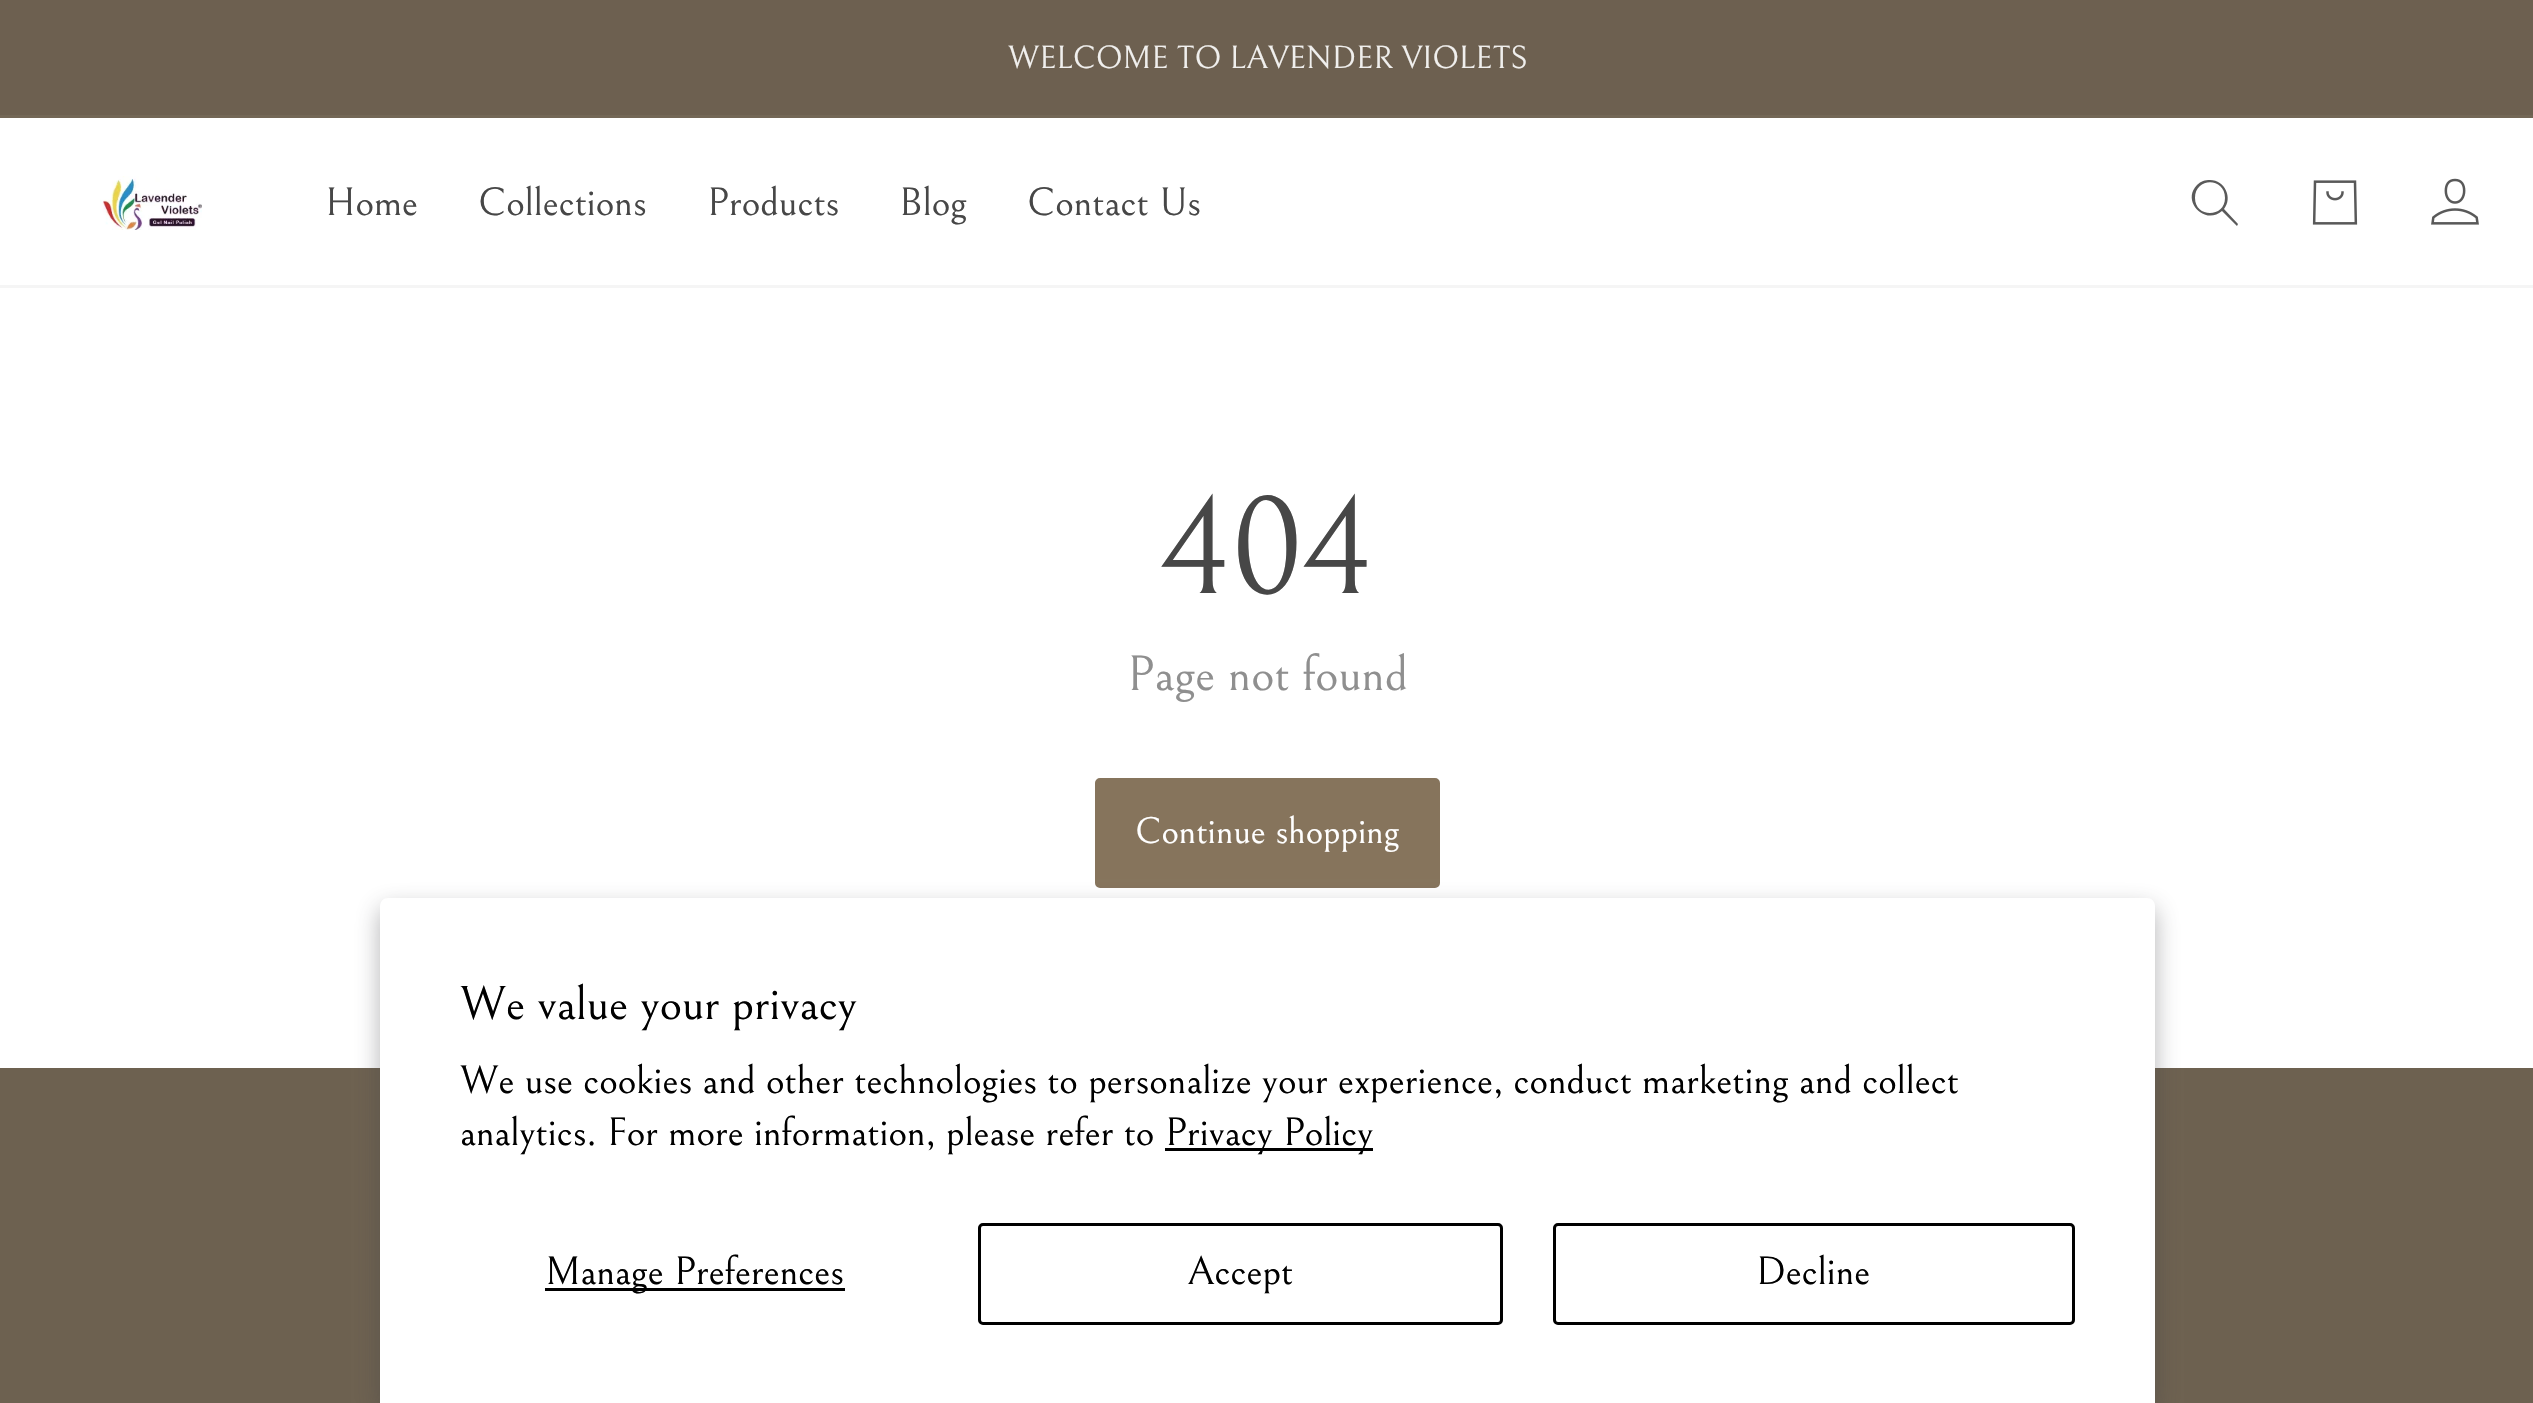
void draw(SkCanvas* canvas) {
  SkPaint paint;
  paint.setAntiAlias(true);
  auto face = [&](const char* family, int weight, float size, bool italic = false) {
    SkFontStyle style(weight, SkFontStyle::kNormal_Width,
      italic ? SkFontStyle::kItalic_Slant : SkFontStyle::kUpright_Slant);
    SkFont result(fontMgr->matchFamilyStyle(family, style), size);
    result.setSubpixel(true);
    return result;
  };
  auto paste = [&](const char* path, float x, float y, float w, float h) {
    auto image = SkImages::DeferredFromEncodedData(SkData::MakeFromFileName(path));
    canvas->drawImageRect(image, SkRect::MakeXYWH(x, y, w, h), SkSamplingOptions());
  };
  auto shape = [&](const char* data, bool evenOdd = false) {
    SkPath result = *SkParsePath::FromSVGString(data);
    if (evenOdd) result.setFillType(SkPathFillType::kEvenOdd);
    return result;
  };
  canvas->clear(0xffffffff);
  {
    const struct { float x, y, w, h; SkColor color; } items[] = {
      {0, 0, 2533, 115, 0xff6d6050},
      {0, 115, 2533, 3, 0xff736756},
      {0, 285, 2533, 3, 0xfff5f5f5},
    };
    for (auto [x, y, w, h, color] : items) {
      paint.setColor(color);
      canvas->drawRect(SkRect::MakeXYWH(x, y, w, h), paint);
    }
  }
  paste("img/1.png", 100, 176, 102, 54);
  paint.setColor(0xff5a5a5a);
  canvas->drawPath(shape("M2195 198C2195 177 2225 177 2225 198C2225 218 2195 218 2195 198ZM2210 180C2205 180 2201 181 2197 185C2181 201 2205 226 2222 211L2237 226L2238 224L2224 209C2233 198 2225 180 2210 180Z", true), paint);
  paste("img/2.png", 2312, 180, 46, 45);
  paste("img/3.png", 2431, 178, 48, 47);
  paint.setColor(0xff86745c);
  canvas->drawRoundRect(SkRect::MakeXYWH(1096.5f, 779.5f, 342, 107), 3.5f, 3.5f, paint);
  paint.setStroke(true);
  paint.setStrokeWidth(3);
  canvas->drawRoundRect(SkRect::MakeXYWH(1096.5f, 779.5f, 342, 107), 3.5f, 3.5f, paint);
  paint.setStroke(false);
  paint.setColor(0xff6d6150);
  canvas->drawRect(SkRect::MakeXYWH(0, 1068, 2533, 335), paint);
  paint.setColor(0x663f3f44);
  paint.setMaskFilter(SkMaskFilter::MakeBlur(kNormal_SkBlurStyle, 12.5f));
  canvas->drawRoundRect(SkRect::MakeXYWH(380, 908, 1775, 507), 8, 8, paint);
  paint.setMaskFilter(nullptr);
  paint.setColor(0xffffffff);
  canvas->drawPath(shape("M388 898H2147C2151.5 898 2155 901.5 2155 906V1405H380V906C380 901.5 383.5 898 388 898Z"), paint);
  paint.setColor(0xff000000);
  canvas->drawRect(SkRect::MakeXYWH(1165, 1148, 208, 3), paint);
  canvas->drawRect(SkRect::MakeXYWH(545, 1288, 300, 3), paint);
  paint.setStroke(true);
  canvas->drawRoundRect(SkRect::MakeXYWH(979.5f, 1224.5f, 522, 99), 3.5f, 3.5f, paint);
  canvas->drawRoundRect(SkRect::MakeXYWH(1554.5f, 1224.5f, 519, 99), 3.5f, 3.5f, paint);
  auto f0 = face("Bellefair", 400, 32.5f);
  paint.setStroke(false);
  paint.setColor(0xfff0efed);
  canvas->drawString("WELCOME TO LAVENDER VIOLETS", 1008, 68, f0, paint);
  auto f1 = face("Bellefair", 400, 40);
  paint.setColor(0xff474747);
  {
    const struct { const char* s; float x, y; } items[] = {
      {"Home", 325, 215},
      {"Collections", 478, 215},
      {"Products", 707, 215},
      {"Blog", 899, 215},
      {"Contact Us", 1027, 215},
    };
    for (auto [s, x, y] : items) {
      canvas->drawString(s, x, y, f1, paint);
    }
  }
  auto f2 = face("Bellefair", 400, 140);
  canvas->drawString("404", 1161, 593, f2, paint);
  auto f3 = face("Bellefair", 400, 50);
  paint.setColor(0xff8f8f8f);
  canvas->drawString("Page not found", 1127, 690, f3, paint);
  auto f4 = face("Bellefair", 400, 37.5f);
  paint.setColor(0xffffffff);
  canvas->drawString("Continue shopping", 1135, 843, f4, paint);
  auto f5 = face("Bellefair", 400, 48);
  paint.setColor(0xff000000);
  canvas->drawString("We value your privacy", 460, 1019, f5, paint);
  {
    const struct { const char* s; float x, y; } items[] = {
      {"We use cookies and other technologies to personalize your experience, conduct marketing and collect", 460, 1093},
      {"analytics. For more information, please refer to", 460, 1145},
      {"Privacy Policy", 1165, 1145},
      {"Manage Preferences", 545, 1284},
      {"Accept", 1187, 1284},
      {"Decline", 1756, 1284},
    };
    for (auto [s, x, y] : items) {
      canvas->drawString(s, x, y, f1, paint);
    }
  }
}
